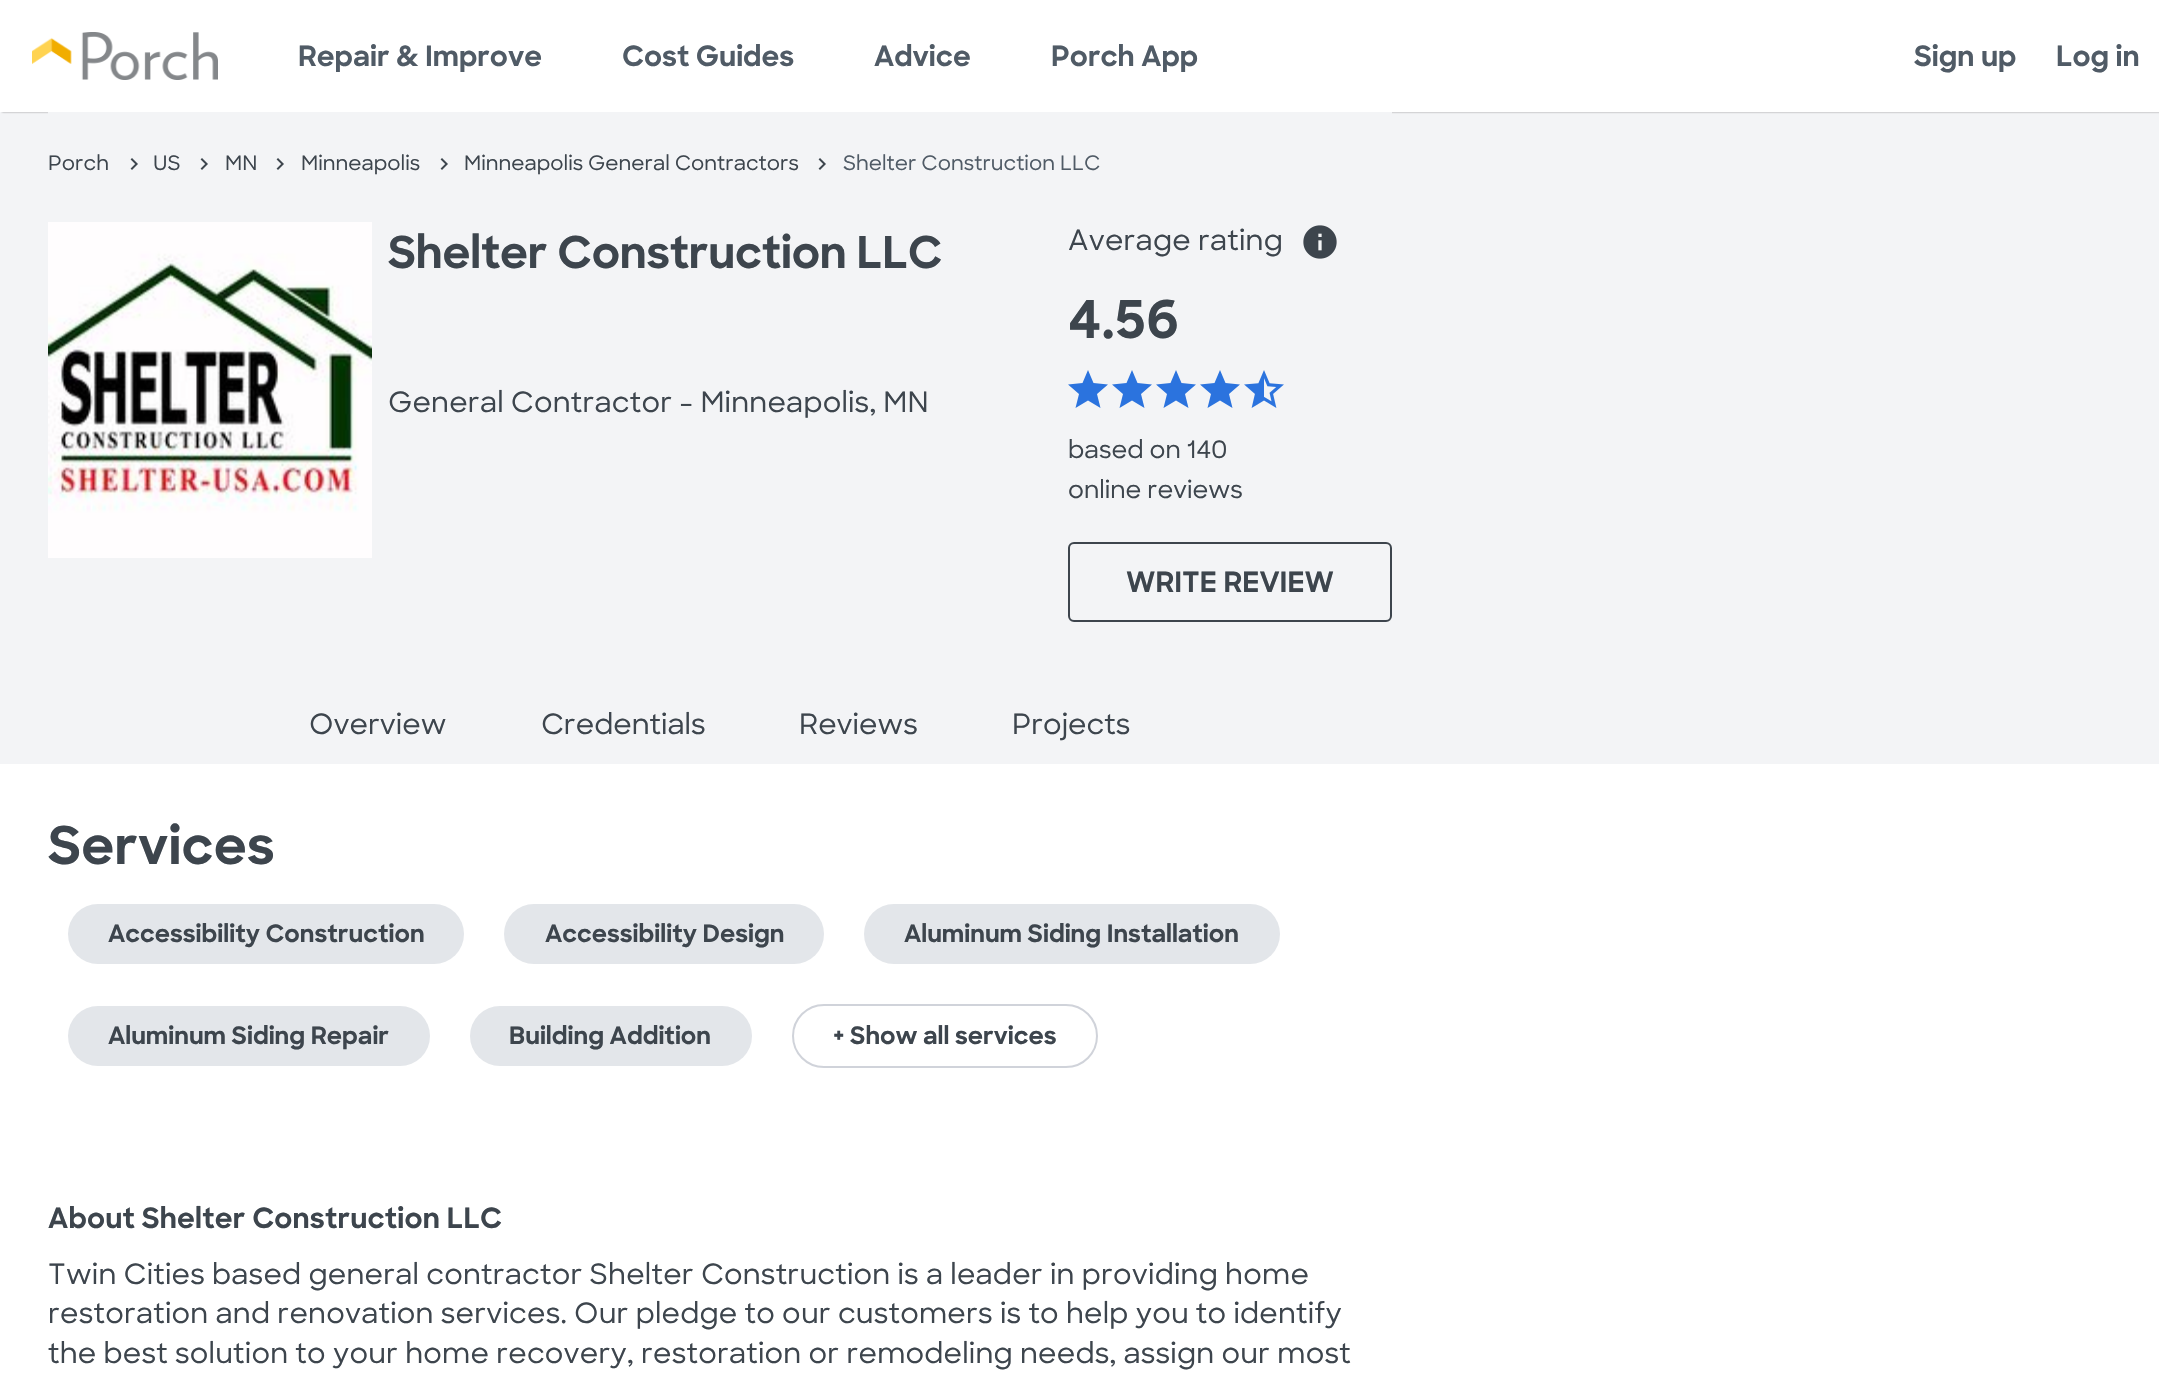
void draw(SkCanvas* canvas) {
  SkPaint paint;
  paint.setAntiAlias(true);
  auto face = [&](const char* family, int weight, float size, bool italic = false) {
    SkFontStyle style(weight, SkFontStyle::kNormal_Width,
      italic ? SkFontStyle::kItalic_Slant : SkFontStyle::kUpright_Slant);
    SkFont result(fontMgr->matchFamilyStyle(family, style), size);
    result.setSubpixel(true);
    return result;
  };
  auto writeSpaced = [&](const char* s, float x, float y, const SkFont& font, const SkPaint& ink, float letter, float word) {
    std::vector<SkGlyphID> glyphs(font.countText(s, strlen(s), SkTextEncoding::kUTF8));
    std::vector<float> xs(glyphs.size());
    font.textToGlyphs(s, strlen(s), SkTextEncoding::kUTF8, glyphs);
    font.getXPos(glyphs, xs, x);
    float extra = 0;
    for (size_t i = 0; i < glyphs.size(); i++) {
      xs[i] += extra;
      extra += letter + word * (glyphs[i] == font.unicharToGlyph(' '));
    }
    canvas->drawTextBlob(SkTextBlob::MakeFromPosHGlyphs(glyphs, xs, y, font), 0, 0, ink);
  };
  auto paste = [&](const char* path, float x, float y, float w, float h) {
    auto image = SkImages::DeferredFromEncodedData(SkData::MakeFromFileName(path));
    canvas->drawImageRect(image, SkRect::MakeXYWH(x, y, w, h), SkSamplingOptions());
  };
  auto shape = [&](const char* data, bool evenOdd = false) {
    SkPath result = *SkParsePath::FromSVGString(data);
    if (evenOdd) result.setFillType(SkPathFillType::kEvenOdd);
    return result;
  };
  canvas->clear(0xffffffff);
  paint.setColor(0xfff3f4f6);
  canvas->drawRect(SkRect::MakeXYWH(0, 112, 2159, 652), paint);
  canvas->save();
  canvas->clipRect(SkRect::MakeXYWH(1, 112, 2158, 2));
  paint.setColor(0x66000000);
  paint.setMaskFilter(SkMaskFilter::MakeBlur(kNormal_SkBlurStyle, 1));
  canvas->drawRect(SkRect::MakeXYWH(2, 0, 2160, 112), paint);
  paint.setMaskFilter(nullptr);
  canvas->restore();
  paste("img/1.png", 32, 32, 186, 48);
  paint.setColor(0xfff3f4f6);
  canvas->drawRect(SkRect::MakeXYWH(48, 112, 1344, 2), paint);
  paste("img/2.png", 130, 158, 8, 12);
  paste("img/2.png", 200, 158, 8, 12);
  paste("img/2.png", 276, 158, 8, 12);
  paste("img/2.png", 440, 158, 8, 12);
  paste("img/2.png", 818, 158, 8, 12);
  paste("img/3.png", 48, 222, 324, 336);
  paste("img/4.png", 1303, 225, 34, 34);
  paint.setColor(0xff2b73de);
  canvas->drawPath(shape("M1088 400.5L1075.5 408L1079 394L1068 384.5L1082.5 383L1088 370L1093.5 383L1108 384.5L1097 394L1100.5 408Z"), paint);
  canvas->drawPath(shape("M1132 400.5L1119.5 408L1123 394L1112 384.5L1126.5 383L1132 370L1137.5 383L1152 384.5L1141 394L1144.5 408Z"), paint);
  canvas->drawPath(shape("M1176 400.5L1163.5 408L1167 394L1156 384.5L1170.5 383L1176 370L1181.5 383L1196 384.5L1185 394L1188.5 408Z"), paint);
  canvas->drawPath(shape("M1220 400.5L1207.5 408L1211 394L1200 384.5L1214.5 383L1220 370L1225.5 383L1240 384.5L1229 394L1232.5 408Z"), paint);
  paste("img/5.png", 1244, 370, 40, 38);
  paint.setStroke(true);
  paint.setStrokeWidth(2);
  paint.setColor(0xff3d454d);
  canvas->drawRoundRect(SkRect::MakeXYWH(1069, 543, 322, 78), 5, 5, paint);
  paint.setStroke(false);
  paint.setColor(0xffe3e6ea);
  canvas->drawRoundRect(SkRect::MakeXYWH(68, 904, 396, 60), 30, 30, paint);
  canvas->drawRoundRect(SkRect::MakeXYWH(504, 904, 320, 60), 30, 30, paint);
  canvas->drawRoundRect(SkRect::MakeXYWH(864, 904, 416, 60), 30, 30, paint);
  canvas->drawRoundRect(SkRect::MakeXYWH(68, 1006, 362, 60), 30, 30, paint);
  canvas->drawRoundRect(SkRect::MakeXYWH(470, 1006, 282, 60), 30, 30, paint);
  paint.setStroke(true);
  paint.setColor(0xffd0d3da);
  canvas->drawRoundRect(SkRect::MakeXYWH(793, 1005, 304, 62), 31, 31, paint);
  auto f0 = face("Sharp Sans", 700, 28);
  paint.setStroke(false);
  paint.setColor(0xff505b66);
  {
    const struct { const char* s; float x, y; } items[] = {
      {"Repair & Improve", 298, 66},
      {"Cost Guides", 622, 66},
      {"Advice", 874, 66},
      {"Porch App", 1051, 66},
      {"Sign up", 1914, 66},
      {"Log in", 2056, 66},
    };
    for (auto [s, x, y] : items) {
      canvas->drawString(s, x, y, f0, paint);
    }
  }
  auto f1 = face("Sharp Sans", 500, 20);
  paint.setColor(0xff3d454d);
  {
    const struct { const char* s; float x, y; } items[] = {
      {"Porch", 48, 170},
      {"US", 153, 170},
      {"MN", 225, 170},
      {"Minneapolis", 301, 170},
      {"Minneapolis General Contractors", 464, 170},
    };
    for (auto [s, x, y] : items) {
      canvas->drawString(s, x, y, f1, paint);
    }
  }
  paint.setColor(0xff505b66);
  canvas->drawString("Shelter Construction LLC", 843, 170, f1, paint);
  auto f2 = face("Sharp Sans", 700, 44);
  paint.setColor(0xff3d454d);
  writeSpaced("Shelter Construction LLC", 388, 268, f2, paint, -0.2f, 0);
  auto f3 = face("Sharp Sans", 500, 28);
  writeSpaced("General Contractor - Minneapolis, MN", 388, 412, f3, paint, 0.2f, 0);
  writeSpaced("Average rating", 1068, 250, f3, paint, 0.2f, 0);
  auto f4 = face("Sharp Sans", 700, 52);
  writeSpaced("4.56", 1068, 338, f4, paint, 0.2f, 0);
  auto f5 = face("Sharp Sans", 500, 24);
  canvas->drawString("based on 140", 1068, 458, f5, paint);
  canvas->drawString("online reviews", 1068, 498, f5, paint);
  canvas->drawString("WRITE REVIEW", 1126, 592, f0, paint);
  {
    const struct { const char* s; float x, y; } items[] = {
      {"Overview", 309, 734},
      {"Credentials", 541, 734},
      {"Reviews", 799, 734},
      {"Projects", 1012, 734},
    };
    for (auto [s, x, y] : items) {
      canvas->drawString(s, x, y, f3, paint);
    }
  }
  writeSpaced("Services", 48, 864, f4, paint, 0.2f, 0);
  auto f6 = face("Sharp Sans", 700, 24);
  {
    const struct { const char* s; float x, y; } items[] = {
      {"Accessibility Construction", 108, 942},
      {"Accessibility Design", 545, 942},
      {"Aluminum Siding Installation", 904, 942},
      {"Aluminum Siding Repair", 108, 1044},
      {"Building Addition", 509, 1044},
      {"+ Show all services", 833, 1044},
    };
    for (auto [s, x, y] : items) {
      canvas->drawString(s, x, y, f6, paint);
    }
  }
  writeSpaced("About Shelter Construction LLC", 48, 1228, f0, paint, 0.2f, 0);
  {
    const struct { const char* s; float x, y; } items[] = {
      {"Twin Cities based general contractor Shelter Construction is a leader in providing home", 48, 1284},
      {"restoration and renovation services. Our pledge to our customers is to help you to identify", 48, 1323},
      {"the best solution to your home recovery, restoration or remodeling needs, assign our most", 48, 1363},
    };
    for (auto [s, x, y] : items) {
      writeSpaced(s, x, y, f3, paint, 0.2f, 0);
    }
  }
}
